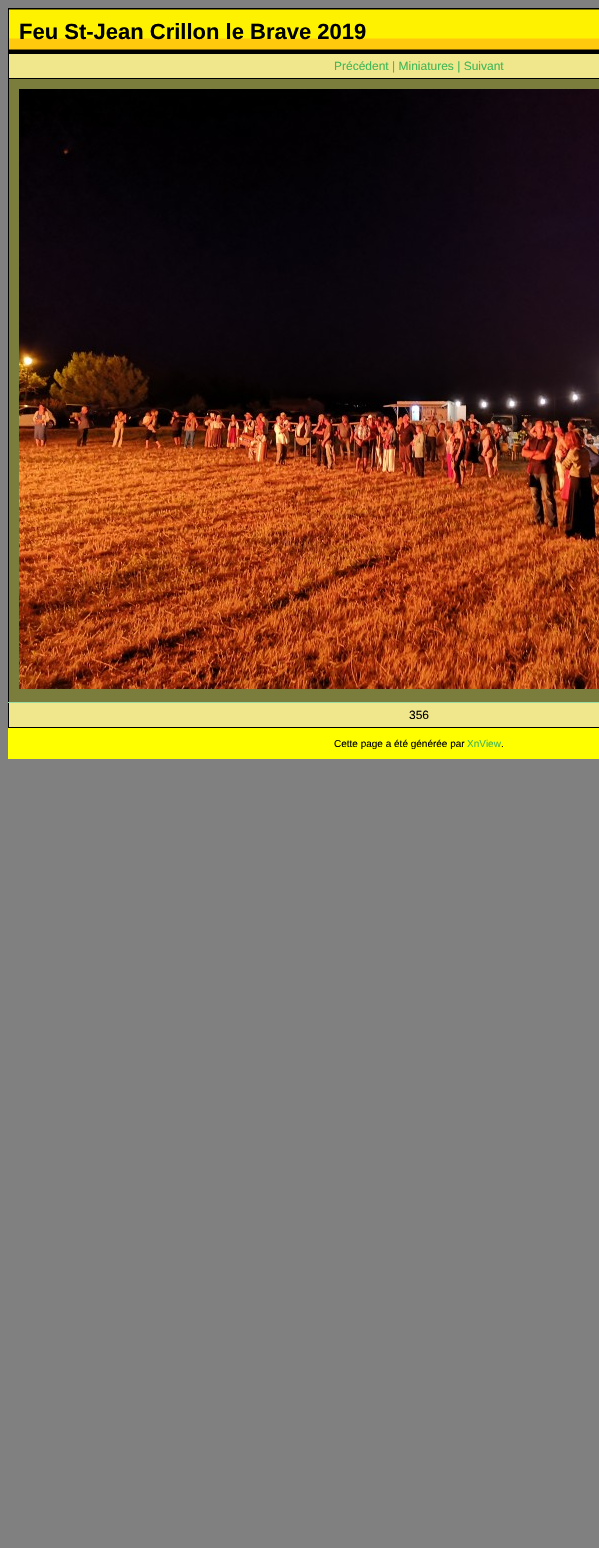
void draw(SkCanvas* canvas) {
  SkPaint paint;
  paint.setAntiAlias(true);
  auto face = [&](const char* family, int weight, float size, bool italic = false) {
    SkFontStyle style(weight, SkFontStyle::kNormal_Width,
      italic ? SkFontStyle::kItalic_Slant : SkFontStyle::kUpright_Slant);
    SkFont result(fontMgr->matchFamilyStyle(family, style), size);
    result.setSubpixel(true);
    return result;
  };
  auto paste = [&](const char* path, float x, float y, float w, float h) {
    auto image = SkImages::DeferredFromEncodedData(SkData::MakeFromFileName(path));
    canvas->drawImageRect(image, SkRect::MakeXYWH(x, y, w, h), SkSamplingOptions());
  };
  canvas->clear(0xff808080);
  {
    const struct { float x, y, w, h; SkColor color; } items[] = {
      {9, 79, 590, 623, 0xff7b7d3d},
      {8, 8, 591, 1, 0xff000000},
      {8, 727, 591, 1, 0xff000000},
      {8, 8, 1, 720, 0xff000000},
    };
    for (auto [x, y, w, h, color] : items) {
      paint.setColor(color);
      canvas->drawRect(SkRect::MakeXYWH(x, y, w, h), paint);
    }
  }
  paste("img/1.png", 9, 9, 590, 45);
  paint.setColor(0xfff0e68c);
  canvas->drawRect(SkRect::MakeXYWH(9, 54, 590, 24), paint);
  paint.setColor(0xff000000);
  canvas->drawRect(SkRect::MakeXYWH(8, 78, 591, 1), paint);
  paste("img/2.png", 19, 89, 580, 600);
  {
    const struct { float x, y, w, h; SkColor color; } items[] = {
      {9, 703, 590, 24, 0xfff0e68c},
      {8, 702, 591, 1, 0xff98dca3},
      {8, 728, 591, 31, 0xffffff00},
    };
    for (auto [x, y, w, h, color] : items) {
      paint.setColor(color);
      canvas->drawRect(SkRect::MakeXYWH(x, y, w, h), paint);
    }
  }
  auto f0 = face("Liberation Sans", 700, 22);
  paint.setColor(0xff000000);
  canvas->drawString("Feu St-Jean Crillon le Brave 2019", 19, 39, f0, paint);
  auto f1 = face("Liberation Sans", 400, 12);
  paint.setColor(0xff41b757);
  canvas->drawString("Précédent | Miniatures | Suivant", 334, 70, f1, paint);
  paint.setColor(0xff000000);
  canvas->drawString("356", 409, 719, f1, paint);
  auto f2 = face("Liberation Sans", 400, 10);
  canvas->drawString("Cette page a été générée par", 334, 747, f2, paint);
  paint.setColor(0xff41b757);
  canvas->drawString("XnView", 467, 747, f2, paint);
  paint.setColor(0xff000000);
  canvas->drawString(".", 501, 747, f2, paint);
}
